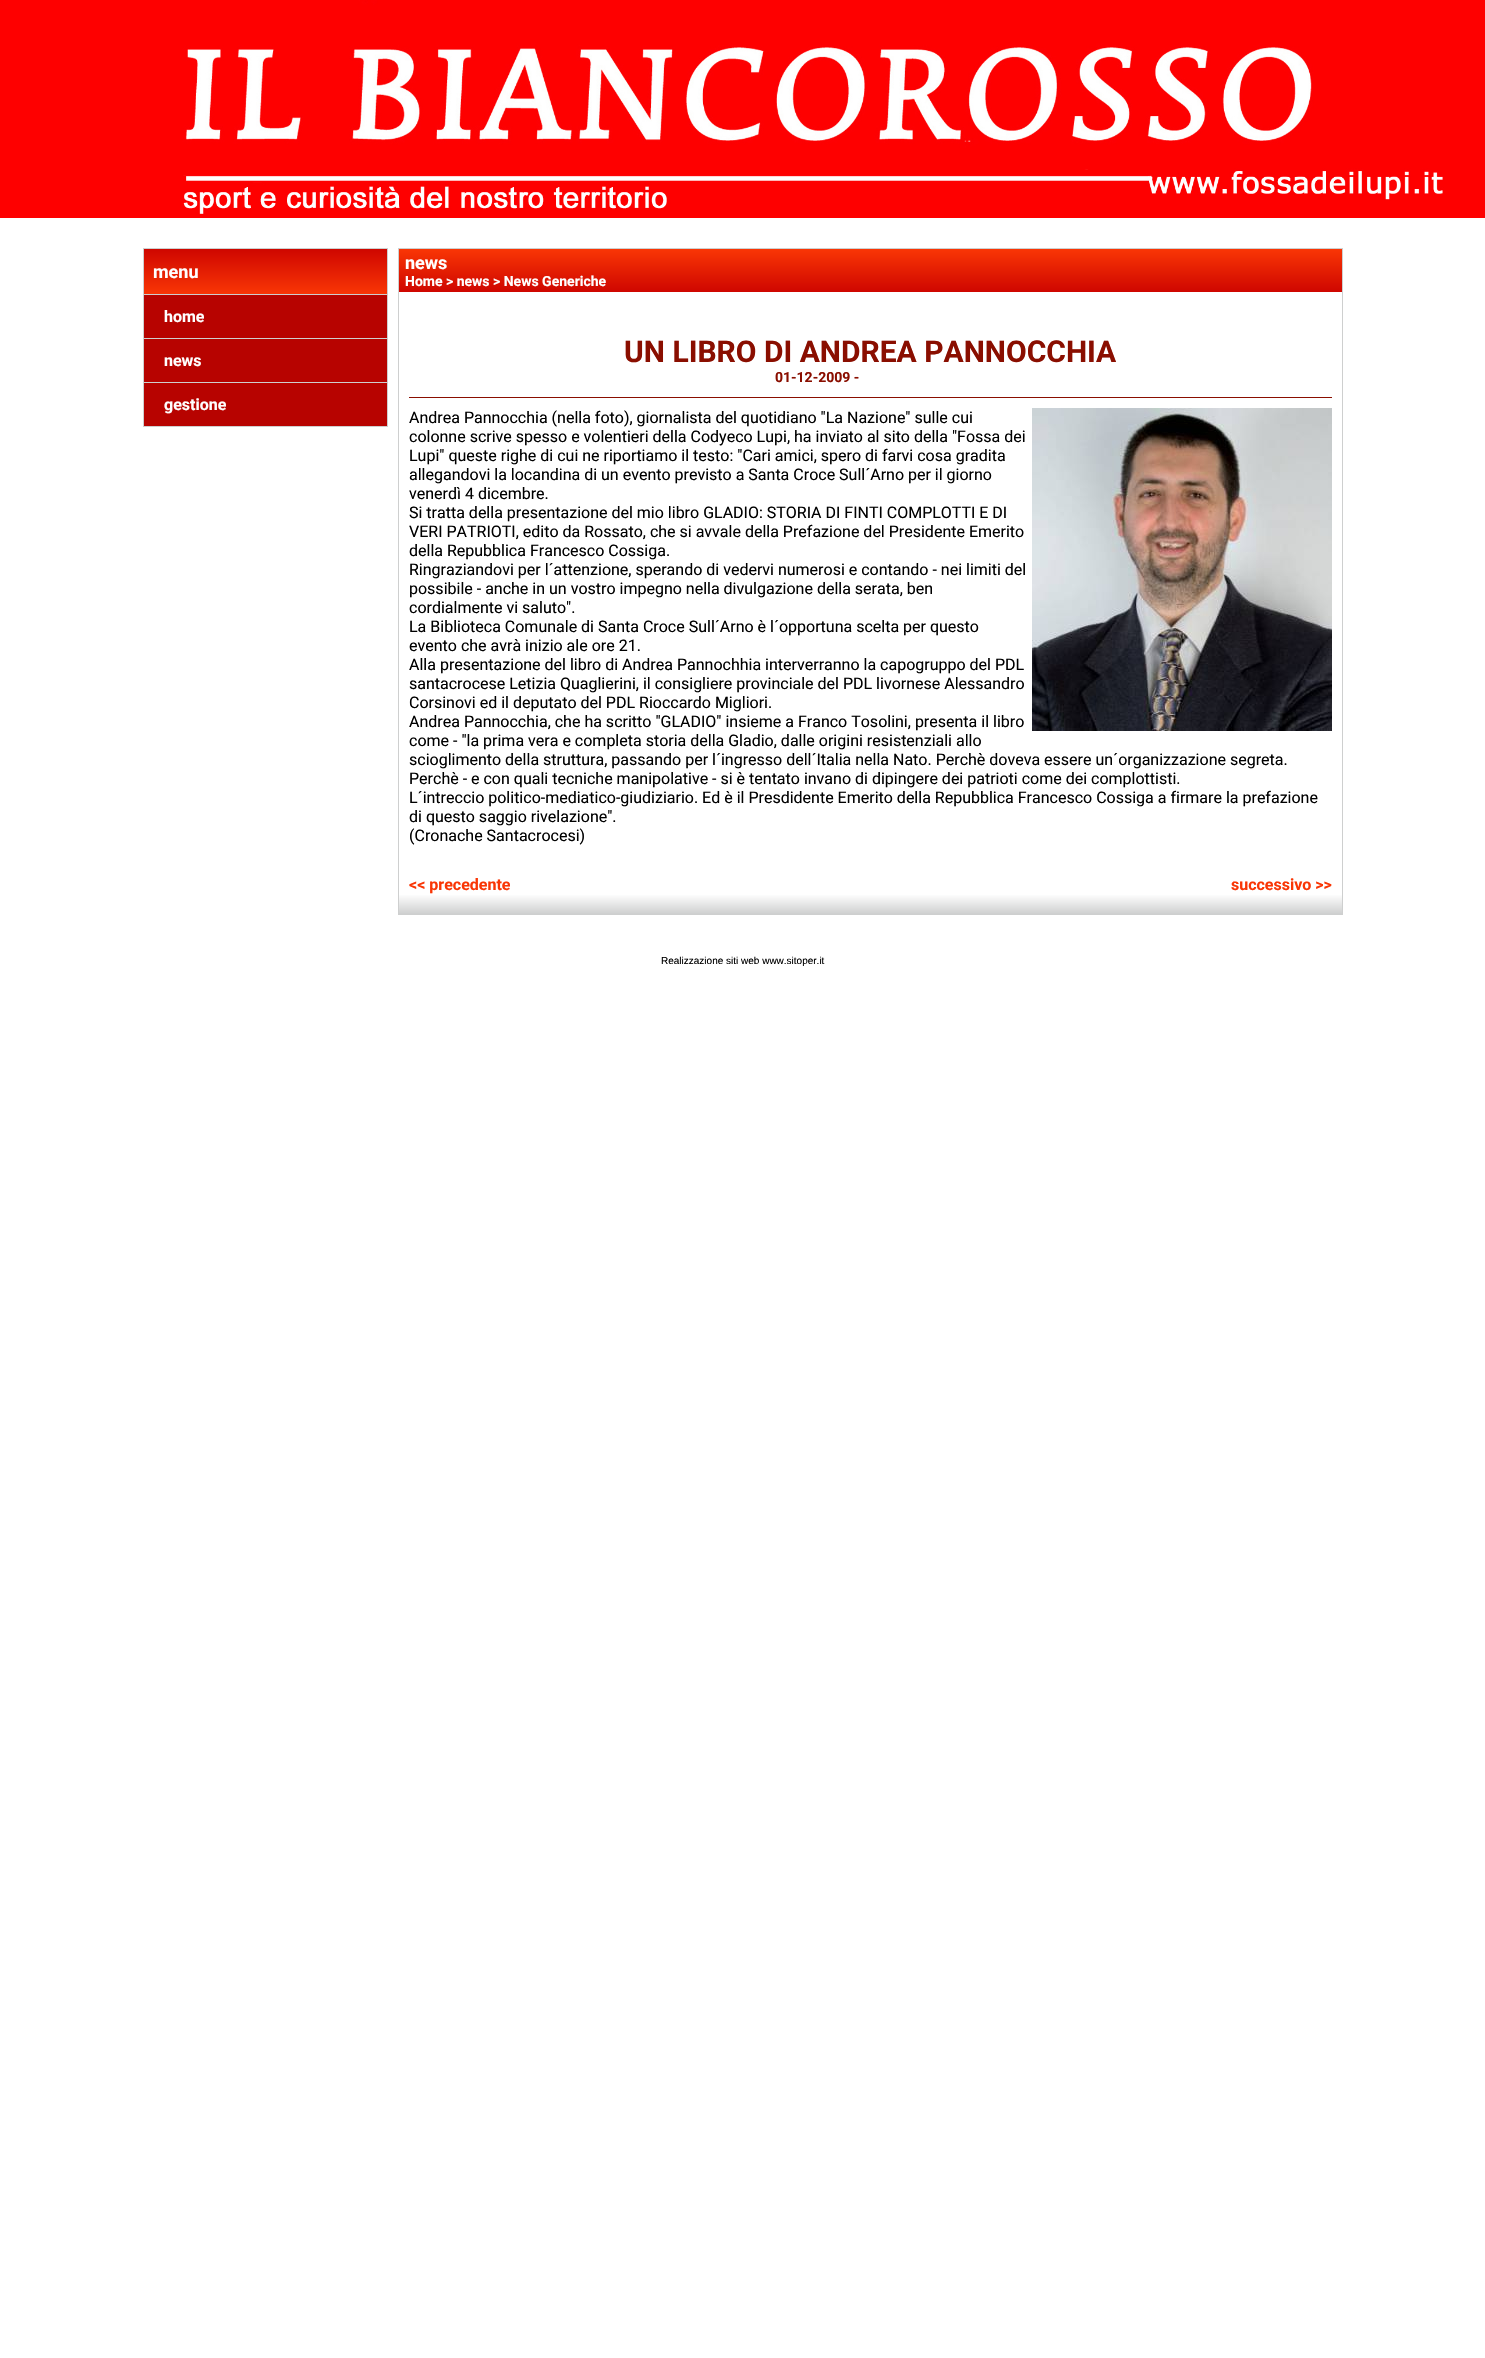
void draw(SkCanvas* canvas) {
  SkPaint paint;
  paint.setAntiAlias(true);
  auto face = [&](const char* family, int weight, float size, bool italic = false) {
    SkFontStyle style(weight, SkFontStyle::kNormal_Width,
      italic ? SkFontStyle::kItalic_Slant : SkFontStyle::kUpright_Slant);
    SkFont result(fontMgr->matchFamilyStyle(family, style), size);
    result.setSubpixel(true);
    return result;
  };
  auto paste = [&](const char* path, float x, float y, float w, float h) {
    auto image = SkImages::DeferredFromEncodedData(SkData::MakeFromFileName(path));
    canvas->drawImageRect(image, SkRect::MakeXYWH(x, y, w, h), SkSamplingOptions());
  };
  canvas->clear(0xffffffff);
  paste("img/1.png", 0, 0, 1485, 218);
  {
    const SkColor colors[] = {0xfff93605, 0xffcf0600};
    const float stops[] = {0, 1};
    const SkPoint ends[] = {{266, 294}, {266, 249}};
    paint.setShader(SkGradientShader::MakeLinear(ends, colors, stops, 2, SkTileMode::kClamp));
    paint.setAlpha(255);
  }
  canvas->drawRect(SkRect::MakeXYWH(144, 249, 243, 45), paint);
  paint.setStroke(true);
  paint.setStrokeWidth(1);
  paint.setShader(nullptr);
  paint.setColor(0xffcecfcf);
  canvas->drawRect(SkRect::MakeXYWH(143.5f, 248.5f, 244, 46), paint);
  paint.setStroke(false);
  {
    const struct { float x, y, w, h; SkColor color; } items[] = {
      {387, 295, 1, 132, 0xffcecfcf},
      {143, 295, 1, 132, 0xffcecfcf},
      {144, 295, 243, 43, 0xffb70300},
      {144, 338, 243, 1, 0xffcecfcf},
      {144, 339, 243, 43, 0xffb70300},
      {144, 382, 243, 1, 0xffcecfcf},
      {144, 383, 243, 43, 0xffb70300},
      {144, 426, 243, 1, 0xffcecfcf},
    };
    for (auto [x, y, w, h, color] : items) {
      paint.setColor(color);
      canvas->drawRect(SkRect::MakeXYWH(x, y, w, h), paint);
    }
  }
  {
    const SkColor colors[] = {0xffcecfcf, 0xffffffff};
    const float stops[] = {0, 0.03f};
    const SkPoint ends[] = {{871, 914}, {871, 249}};
    paint.setShader(SkGradientShader::MakeLinear(ends, colors, stops, 2, SkTileMode::kClamp));
    paint.setAlpha(255);
  }
  canvas->drawRect(SkRect::MakeXYWH(399, 895, 943, 19), paint);
  paint.setStroke(true);
  paint.setShader(nullptr);
  paint.setColor(0xffcecfcf);
  canvas->drawRect(SkRect::MakeXYWH(398.5f, 248.5f, 944, 666), paint);
  paint.setStroke(false);
  {
    const SkColor colors[] = {0xffcf0600, 0xfff93605};
    const float stops[] = {0, 1};
    const SkPoint ends[] = {{871, 292}, {871, 249}};
    paint.setShader(SkGradientShader::MakeLinear(ends, colors, stops, 2, SkTileMode::kClamp));
    paint.setAlpha(255);
  }
  canvas->drawRect(SkRect::MakeXYWH(399, 249, 943, 43), paint);
  paint.setShader(nullptr);
  paint.setColor(0xff8a0e00);
  canvas->drawRect(SkRect::MakeXYWH(409, 397, 923, 1), paint);
  paste("img/2.png", 1032, 408, 300, 323);
  auto f0 = face("Roboto", 700, 18);
  paint.setColor(0xffffffff);
  canvas->drawString("menu", 153, 278, f0, paint);
  auto f1 = face("Roboto", 700, 16);
  {
    const struct { const char* s; float x, y; } items[] = {
      {"home", 164, 322},
      {"news", 164, 366},
      {"gestione", 164, 410},
    };
    for (auto [s, x, y] : items) {
      canvas->drawString(s, x, y, f1, paint);
    }
  }
  canvas->drawString("news", 405, 269, f0, paint);
  auto f2 = face("Roboto", 700, 14);
  canvas->drawString("Home > news > News Generiche", 405, 286, f2, paint);
  auto f3 = face("Roboto", 700, 30);
  paint.setColor(0xff8a0e00);
  canvas->drawString("UN LIBRO DI ANDREA PANNOCCHIA", 624, 362, f3, paint);
  canvas->drawString("01-12-2009 -", 775, 382, f2, paint);
  auto f4 = face("Roboto", 400, 16);
  paint.setColor(0xff000000);
  {
    const struct { const char* s; float x, y; } items[] = {
      {"Andrea Pannocchia (nella foto), giornalista del quotidiano \"La Nazione\" sulle cui", 409, 423},
      {"colonne scrive spesso e volentieri della Codyeco Lupi, ha inviato al sito della \"Fossa dei", 409, 442},
      {"Lupi\" queste righe di cui ne riportiamo il testo: \"Cari amici, spero di farvi cosa gradita", 409, 461},
      {"allegandovi la locandina di un evento previsto a Santa Croce Sull´Arno per il giorno", 409, 480},
      {"venerdì 4 dicembre.", 409, 499},
      {"Si tratta della presentazione del mio libro GLADIO: STORIA DI FINTI COMPLOTTI E DI", 409, 518},
      {"VERI PATRIOTI, edito da Rossato, che si avvale della Prefazione del Presidente Emerito", 409, 537},
      {"della Repubblica Francesco Cossiga.", 409, 556},
      {"Ringraziandovi per l´attenzione, sperando di vedervi numerosi e contando - nei limiti del", 409, 575},
      {"possibile - anche in un vostro impegno nella divulgazione della serata, ben", 409, 594},
      {"cordialmente vi saluto\".", 409, 613},
      {"La Biblioteca Comunale di Santa Croce Sull´Arno è l´opportuna scelta per questo", 409, 632},
      {"evento che avrà inizio ale ore 21.", 409, 651},
      {"Alla presentazione del libro di Andrea Pannochhia interverranno la capogruppo del PDL", 409, 670},
      {"santacrocese Letizia Quaglierini, il consigliere provinciale del PDL livornese Alessandro", 409, 689},
      {"Corsinovi ed il deputato del PDL Rioccardo Migliori.", 409, 708},
      {"Andrea Pannocchia, che ha scritto \"GLADIO\" insieme a Franco Tosolini, presenta il libro", 409, 727},
      {"come - \"la prima vera e completa storia della Gladio, dalle origini resistenziali allo", 409, 746},
      {"scioglimento della struttura, passando per l´ingresso dell´Italia nella Nato. Perchè doveva essere un´organizzazione segreta.", 409, 765},
      {"Perchè - e con quali tecniche manipolative - si è tentato invano di dipingere dei patrioti come dei complottisti.", 409, 784},
      {"L´intreccio politico-mediatico-giudiziario. Ed è il Presdidente Emerito della Repubblica Francesco Cossiga a firmare la prefazione", 409, 803},
      {"di questo saggio rivelazione\".", 409, 822},
      {"(Cronache Santacrocesi)", 409, 841},
    };
    for (auto [s, x, y] : items) {
      canvas->drawString(s, x, y, f4, paint);
    }
  }
  paint.setColor(0xfff93605);
  canvas->drawString("<< precedente", 409, 890, f1, paint);
  canvas->drawString("successivo >>", 1231, 890, f1, paint);
  auto f5 = face("Liberation Sans", 400, 10);
  paint.setColor(0xff000000);
  canvas->drawString("Realizzazione siti web www.sitoper.it", 661, 964, f5, paint);
}
